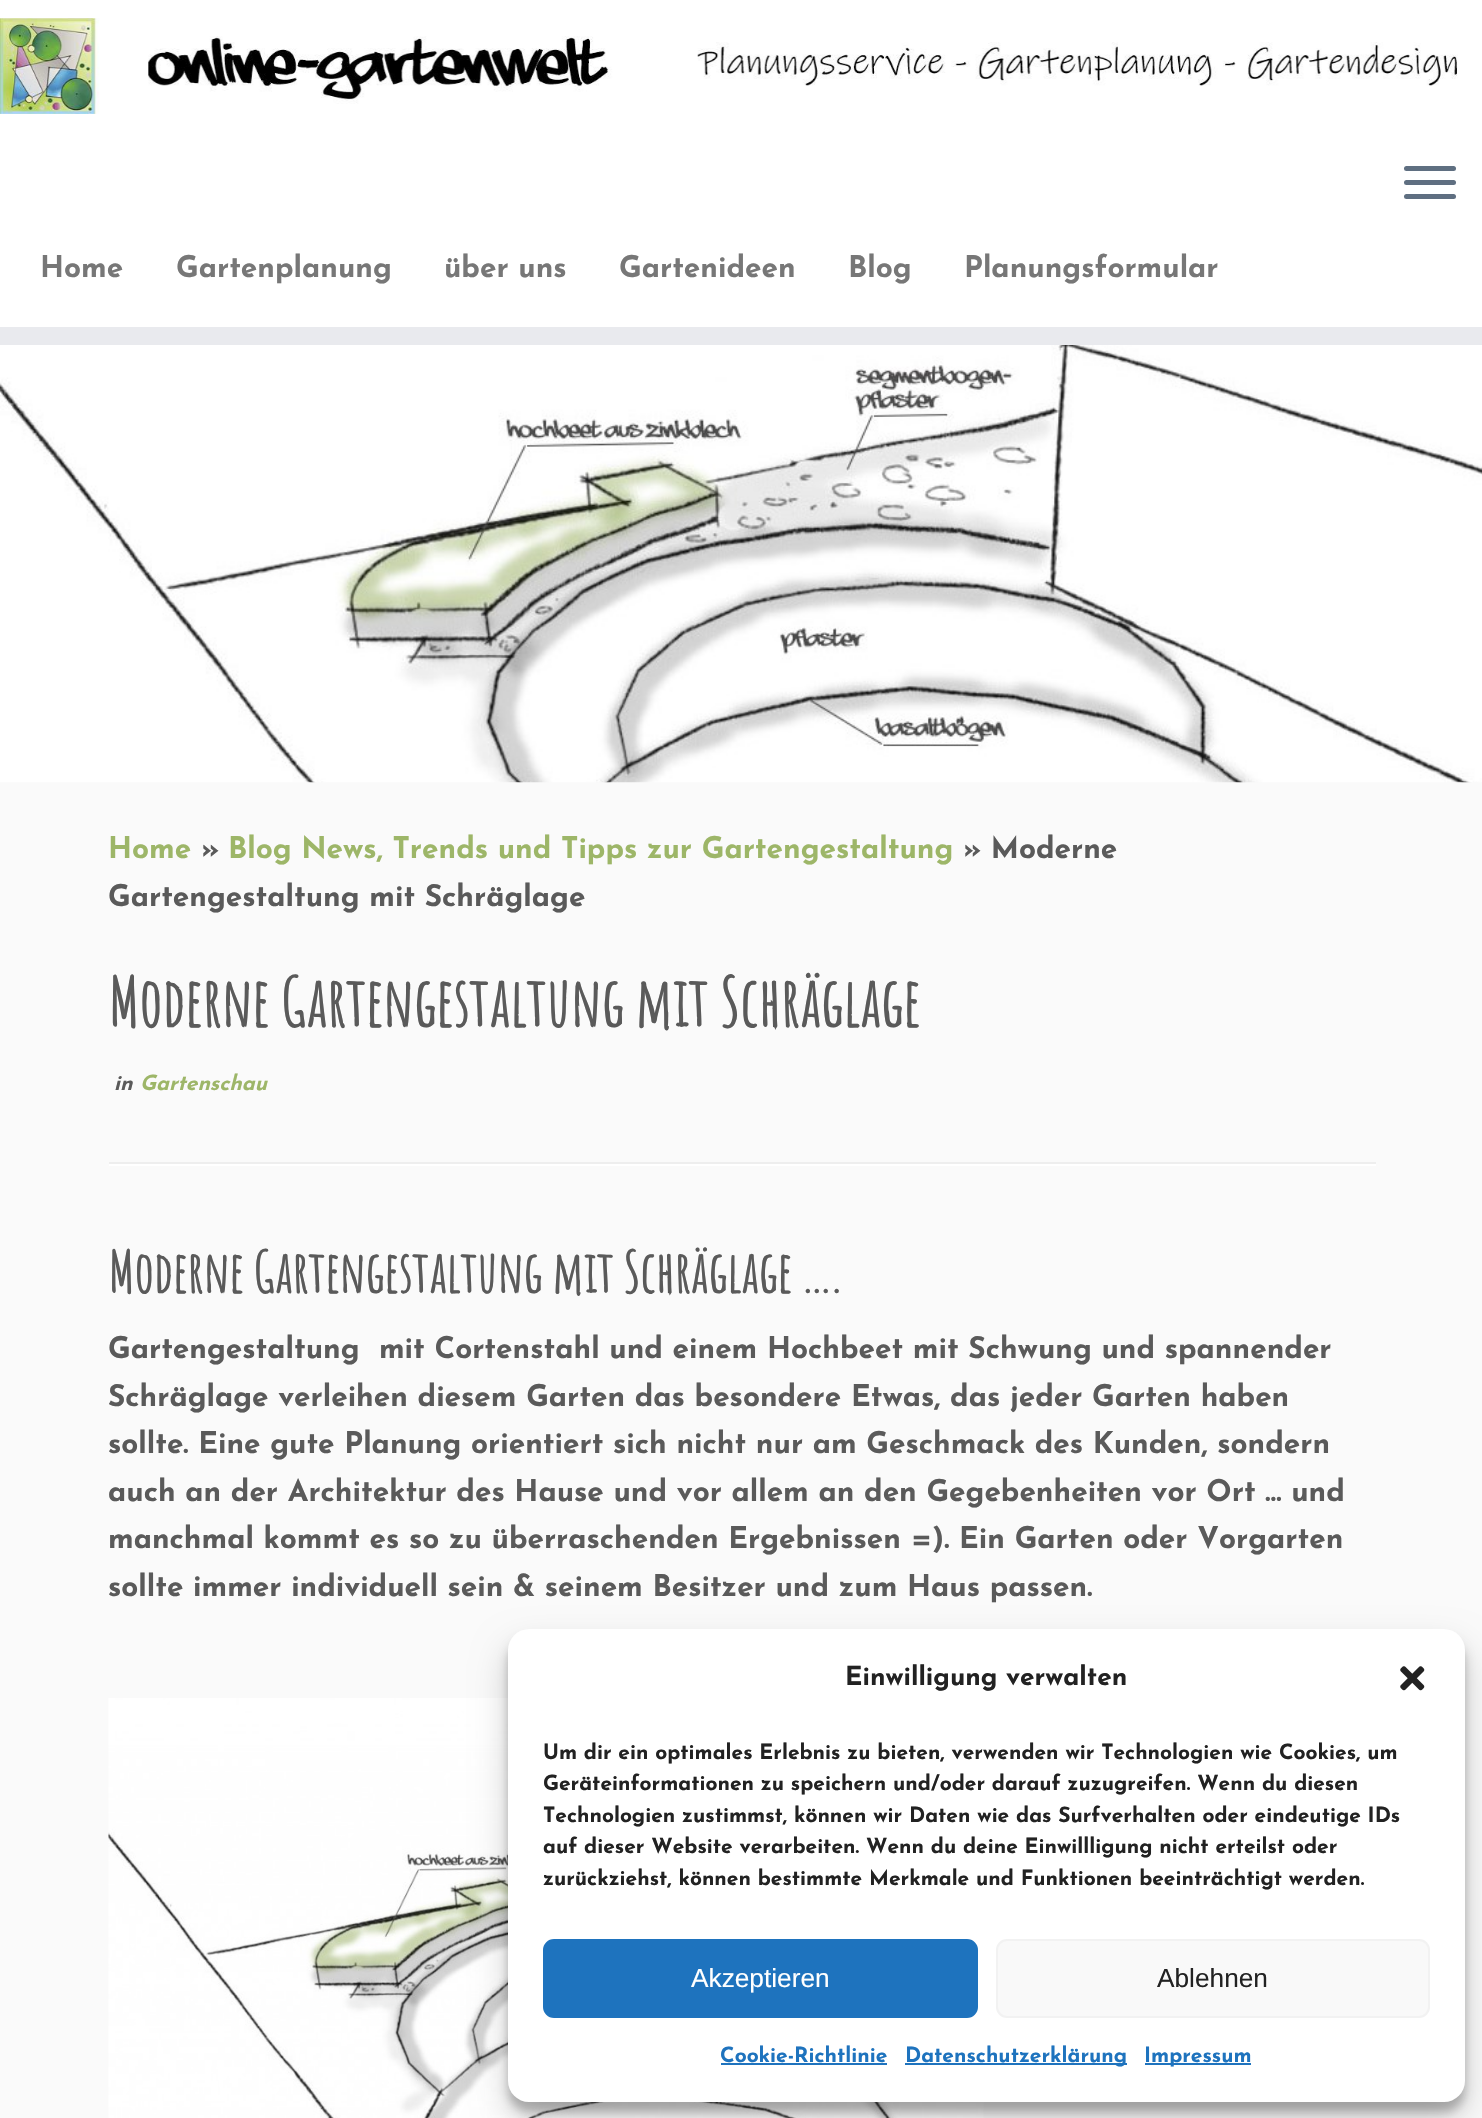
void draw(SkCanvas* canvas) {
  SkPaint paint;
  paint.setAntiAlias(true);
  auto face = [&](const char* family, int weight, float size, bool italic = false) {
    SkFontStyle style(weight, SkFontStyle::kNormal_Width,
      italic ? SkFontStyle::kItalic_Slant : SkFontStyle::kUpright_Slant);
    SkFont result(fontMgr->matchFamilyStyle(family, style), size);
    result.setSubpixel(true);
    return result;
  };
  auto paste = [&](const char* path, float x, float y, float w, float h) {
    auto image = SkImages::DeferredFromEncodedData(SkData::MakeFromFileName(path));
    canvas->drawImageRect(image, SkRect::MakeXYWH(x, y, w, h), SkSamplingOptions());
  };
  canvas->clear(0xfffafafa);
  paint.setColor(0xffffffff);
  canvas->drawRect(SkRect::MakeXYWH(0, 0, 1482, 327), paint);
  paint.setColor(0xffe9eaee);
  canvas->drawRect(SkRect::MakeXYWH(0, 327, 1482, 18), paint);
  paste("img/1.png", 0, 18, 1458, 96);
  paint.setColor(0xff5f6f81);
  canvas->drawRoundRect(SkRect::MakeXYWH(1404, 166, 52, 5), 2.5f, 2.5f, paint);
  canvas->drawRoundRect(SkRect::MakeXYWH(1404, 180, 52, 5), 2.5f, 2.5f, paint);
  canvas->drawRoundRect(SkRect::MakeXYWH(1404, 194, 52, 5), 2.5f, 2.5f, paint);
  paste("img/2.png", 0, 345, 1482, 438);
  paint.setColor(0xffeeeeee);
  canvas->drawRect(SkRect::MakeXYWH(109, 1162, 1267, 2), paint);
  paint.setColor(0xffffffff);
  canvas->drawRect(SkRect::MakeXYWH(109, 1164, 1267, 2), paint);
  paste("img/3.png", 108, 1698, 876, 420);
  paint.setColor(0x3b000000);
  paint.setMaskFilter(SkMaskFilter::MakeBlur(kNormal_SkBlurStyle, 5));
  canvas->drawRoundRect(SkRect::MakeXYWH(508, 1640, 957, 472), 21, 21, paint);
  paint.setMaskFilter(nullptr);
  paint.setColor(0x30000000);
  paint.setMaskFilter(SkMaskFilter::MakeBlur(kNormal_SkBlurStyle, 17.5f));
  canvas->drawRoundRect(SkRect::MakeXYWH(508, 1647, 957, 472), 21, 21, paint);
  paint.setMaskFilter(nullptr);
  paint.setColor(0xffffffff);
  canvas->drawRoundRect(SkRect::MakeXYWH(508, 1629, 957, 473), 21, 21, paint);
  paste("img/4.png", 1400, 1666, 25, 25);
  paint.setColor(0xff1e73be);
  canvas->drawRoundRect(SkRect::MakeXYWH(544, 1940, 433, 77), 10, 10, paint);
  paint.setStroke(true);
  paint.setStrokeWidth(2);
  canvas->drawRoundRect(SkRect::MakeXYWH(544, 1940, 433, 77), 10, 10, paint);
  paint.setStroke(false);
  paint.setColor(0xfff9f9f9);
  canvas->drawRoundRect(SkRect::MakeXYWH(997, 1940, 432, 77), 10, 10, paint);
  paint.setStroke(true);
  paint.setColor(0xfff2f2f2);
  canvas->drawRoundRect(SkRect::MakeXYWH(997, 1940, 432, 77), 10, 10, paint);
  paint.setStroke(false);
  {
    const struct { float x, y, w, h; SkColor color; } items[] = {
      {721, 2063, 166, 2, 0xff1e73be},
      {905, 2063, 222, 2, 0xff1e73be},
      {1145, 2063, 106, 2, 0xff1e73be},
    };
    for (auto [x, y, w, h, color] : items) {
      paint.setColor(color);
      canvas->drawRect(SkRect::MakeXYWH(x, y, w, h), paint);
    }
  }
  auto f0 = face("Josefin Sans", 100, 29.75f);
  paint.setColor(0xff777777);
  {
    const struct { const char* s; float x, y; } items[] = {
      {"Home", 40, 277},
      {"Gartenplanung", 176, 277},
      {"über uns", 444, 277},
      {"Gartenideen", 619, 277},
      {"Blog", 848, 277},
      {"Planungsformular", 964, 277},
    };
    for (auto [s, x, y] : items) {
      canvas->drawString(s, x, y, f0, paint);
    }
  }
  paint.setColor(0xff9db668);
  canvas->drawString("Home", 108, 858, f0, paint);
  paint.setColor(0xff5a5a5a);
  canvas->drawString("»", 201, 858, f0, paint);
  paint.setColor(0xff9db668);
  canvas->drawString("Blog News, Trends und Tipps zur Gartengestaltung", 228, 858, f0, paint);
  paint.setColor(0xff5a5a5a);
  canvas->drawString("» Moderne", 963, 858, f0, paint);
  canvas->drawString("Gartengestaltung mit Schräglage", 108, 906, f0, paint);
  auto f1 = face("Amatic SC", 700, 66.5f);
  canvas->drawString("Moderne Gartengestaltung mit Schräglage", 108, 1027, f1, paint);
  auto f2 = face("Josefin Sans", 100, 21, true);
  canvas->drawString("in", 114, 1090, f2, paint);
  paint.setColor(0xff9db668);
  canvas->drawString("Gartenschau", 140, 1090, f2, paint);
  auto f3 = face("Amatic SC", 700, 56);
  paint.setColor(0xff5a5a5a);
  canvas->drawString("Moderne Gartengestaltung mit Schräglage ….", 108, 1293, f3, paint);
  {
    const struct { const char* s; float x, y; } items[] = {
      {"Gartengestaltung  mit Cortenstahl und einem Hochbeet mit Schwung und spannender", 108, 1358},
      {"Schräglage verleihen diesem Garten das besondere Etwas, das jeder Garten haben", 108, 1406},
      {"sollte. Eine gute Planung orientiert sich nicht nur am Geschmack des Kunden, sondern", 108, 1453},
      {"auch an der Architektur des Hause und vor allem an den Gegebenheiten vor Ort … und", 108, 1501},
      {"manchmal kommt es so zu überraschenden Ergebnissen =). Ein Garten oder Vorgarten", 108, 1548},
      {"sollte immer individuell sein & seinem Besitzer und zum Haus passen.", 108, 1596},
    };
    for (auto [s, x, y] : items) {
      canvas->drawString(s, x, y, f0, paint);
    }
  }
  auto f4 = face("Josefin Sans", 100, 26.25f);
  paint.setColor(0xff222222);
  canvas->drawString("Einwilligung verwalten", 845, 1685, f4, paint);
  auto f5 = face("Josefin Sans", 100, 21);
  {
    const struct { const char* s; float x, y; } items[] = {
      {"Um dir ein optimales Erlebnis zu bieten, verwenden wir Technologien wie Cookies, um", 543, 1759},
      {"Geräteinformationen zu speichern und/oder darauf zuzugreifen. Wenn du diesen", 543, 1790},
      {"Technologien zustimmst, können wir Daten wie das Surfverhalten oder eindeutige IDs", 543, 1822},
      {"auf dieser Website verarbeiten. Wenn du deine Einwillligung nicht erteilst oder", 543, 1853},
      {"zurückziehst, können bestimmte Merkmale und Funktionen beeinträchtigt werden.", 543, 1885},
    };
    for (auto [s, x, y] : items) {
      canvas->drawString(s, x, y, f5, paint);
    }
  }
  auto f6 = face("Liberation Sans", 400, 26.25f);
  paint.setColor(0xffffffff);
  canvas->drawString("Akzeptieren", 691, 1987, f6, paint);
  paint.setColor(0xff222222);
  canvas->drawString("Ablehnen", 1157, 1987, f6, paint);
  paint.setColor(0xff1e73be);
  {
    const struct { const char* s; float x, y; } items[] = {
      {"Cookie-Richtlinie", 720, 2062},
      {"Datenschutzerklärung", 905, 2062},
      {"Impressum", 1144, 2062},
    };
    for (auto [s, x, y] : items) {
      canvas->drawString(s, x, y, f5, paint);
    }
  }
}
